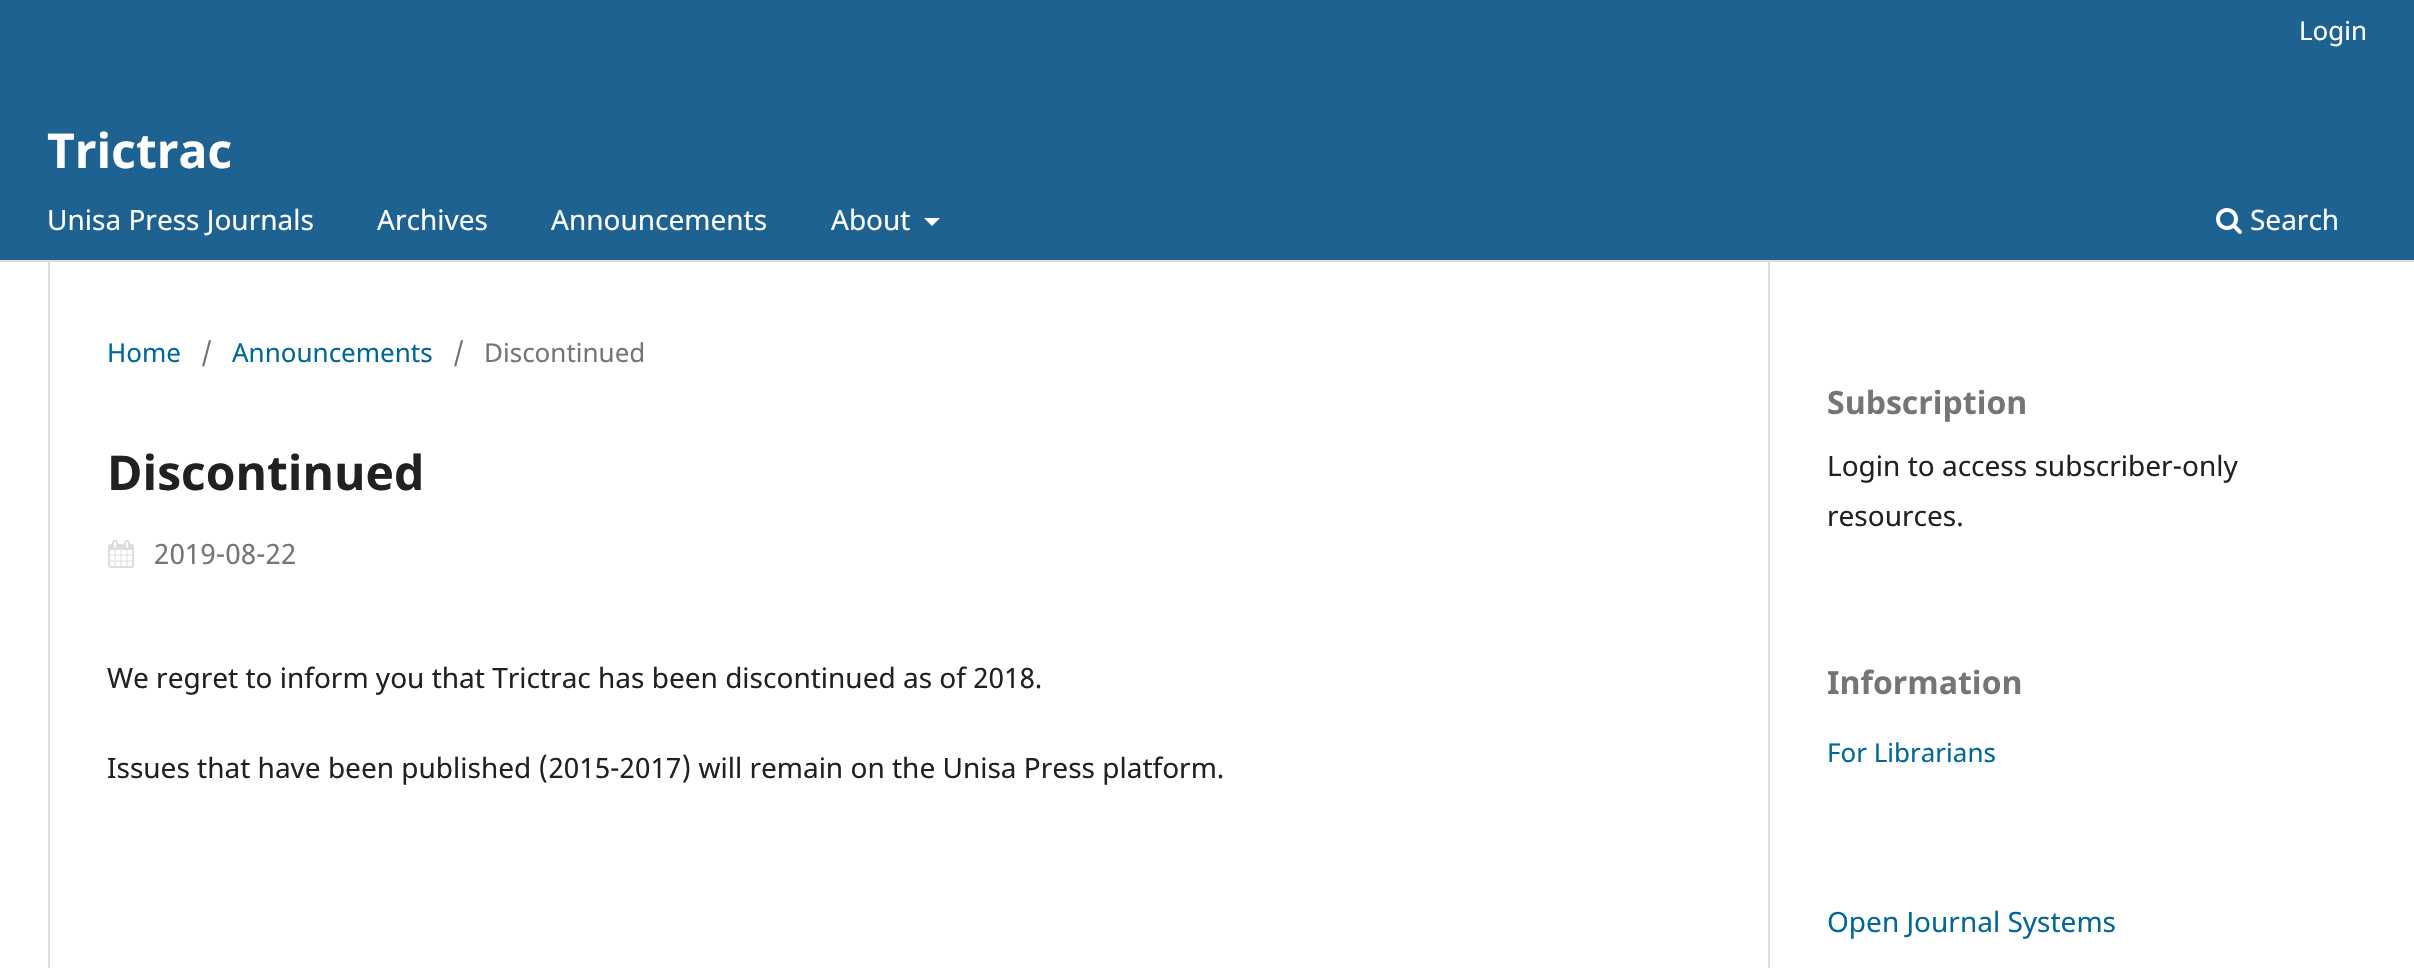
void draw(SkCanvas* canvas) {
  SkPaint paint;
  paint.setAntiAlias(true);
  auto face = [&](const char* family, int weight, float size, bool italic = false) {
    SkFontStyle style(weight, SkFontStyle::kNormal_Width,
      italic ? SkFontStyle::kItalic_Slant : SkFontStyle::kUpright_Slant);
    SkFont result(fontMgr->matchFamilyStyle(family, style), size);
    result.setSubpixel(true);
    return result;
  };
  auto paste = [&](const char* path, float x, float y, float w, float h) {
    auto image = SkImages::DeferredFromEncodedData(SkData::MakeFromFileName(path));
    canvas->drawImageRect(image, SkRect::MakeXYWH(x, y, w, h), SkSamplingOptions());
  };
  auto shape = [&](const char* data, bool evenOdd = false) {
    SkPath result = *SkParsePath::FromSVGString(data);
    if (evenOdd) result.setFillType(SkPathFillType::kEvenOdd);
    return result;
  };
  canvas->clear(0xffffffff);
  paint.setColor(0xff1e6292);
  canvas->drawRect(SkRect::MakeXYWH(0, 0, 2414, 260), paint);
  paint.setColor(0xffdddddd);
  canvas->drawRect(SkRect::MakeXYWH(0, 260, 2414, 2), paint);
  paint.setColor(0xffffffff);
  canvas->drawPath(shape("M924 218H940L932 226Z"), paint);
  paste("img/1.png", 2216, 208, 26, 26);
  paint.setColor(0xffdddddd);
  canvas->drawRect(SkRect::MakeXYWH(48, 262, 2, 706), paint);
  paste("img/2.png", 108, 540, 26, 28);
  canvas->drawRect(SkRect::MakeXYWH(1768, 262, 2, 706), paint);
  auto f0 = face("Noto Sans", 400, 26);
  paint.setColor(0xffffffff);
  canvas->drawString("Login", 2299, 40, f0, paint);
  auto f1 = face("Noto Sans", 400, 28);
  {
    const struct { const char* s; float x, y; } items[] = {
      {"Unisa Press Journals", 47, 230},
      {"Archives", 377, 230},
      {"Announcements", 551, 230},
      {"About", 831, 230},
      {"Search", 2250, 230},
    };
    for (auto [s, x, y] : items) {
      canvas->drawString(s, x, y, f1, paint);
    }
  }
  auto f2 = face("Noto Sans", 700, 48);
  canvas->drawString("Trictrac", 47, 168, f2, paint);
  paint.setColor(0xff006798);
  canvas->drawString("Home", 107, 362, f0, paint);
  paint.setColor(0xff757575);
  canvas->drawString("/", 201, 362, f0, paint);
  paint.setColor(0xff006798);
  canvas->drawString("Announcements", 232, 362, f0, paint);
  paint.setColor(0xff757575);
  canvas->drawString("/", 453, 362, f0, paint);
  canvas->drawString("Discontinued", 484, 362, f0, paint);
  paint.setColor(0xff212121);
  canvas->drawString("Discontinued", 107, 490, f2, paint);
  paint.setColor(0xff757575);
  canvas->drawString("2019-08-22", 154, 564, f1, paint);
  paint.setColor(0xff212121);
  canvas->drawString("We regret to inform you that Trictrac has been discontinued as of 2018.", 107, 688, f1, paint);
  canvas->drawString("Issues that have been published (2015-2017) will remain on the Unisa Press platform.", 107, 778, f1, paint);
  auto f3 = face("Noto Sans", 700, 32);
  paint.setColor(0xff757575);
  canvas->drawString("Subscription", 1827, 414, f3, paint);
  paint.setColor(0xff212121);
  canvas->drawString("Login to access subscriber-only", 1827, 476, f1, paint);
  canvas->drawString("resources.", 1827, 526, f1, paint);
  paint.setColor(0xff757575);
  canvas->drawString("Information", 1827, 694, f3, paint);
  paint.setColor(0xff006798);
  canvas->drawString("For Librarians", 1827, 762, f0, paint);
  canvas->drawString("Open Journal Systems", 1827, 932, f1, paint);
}
